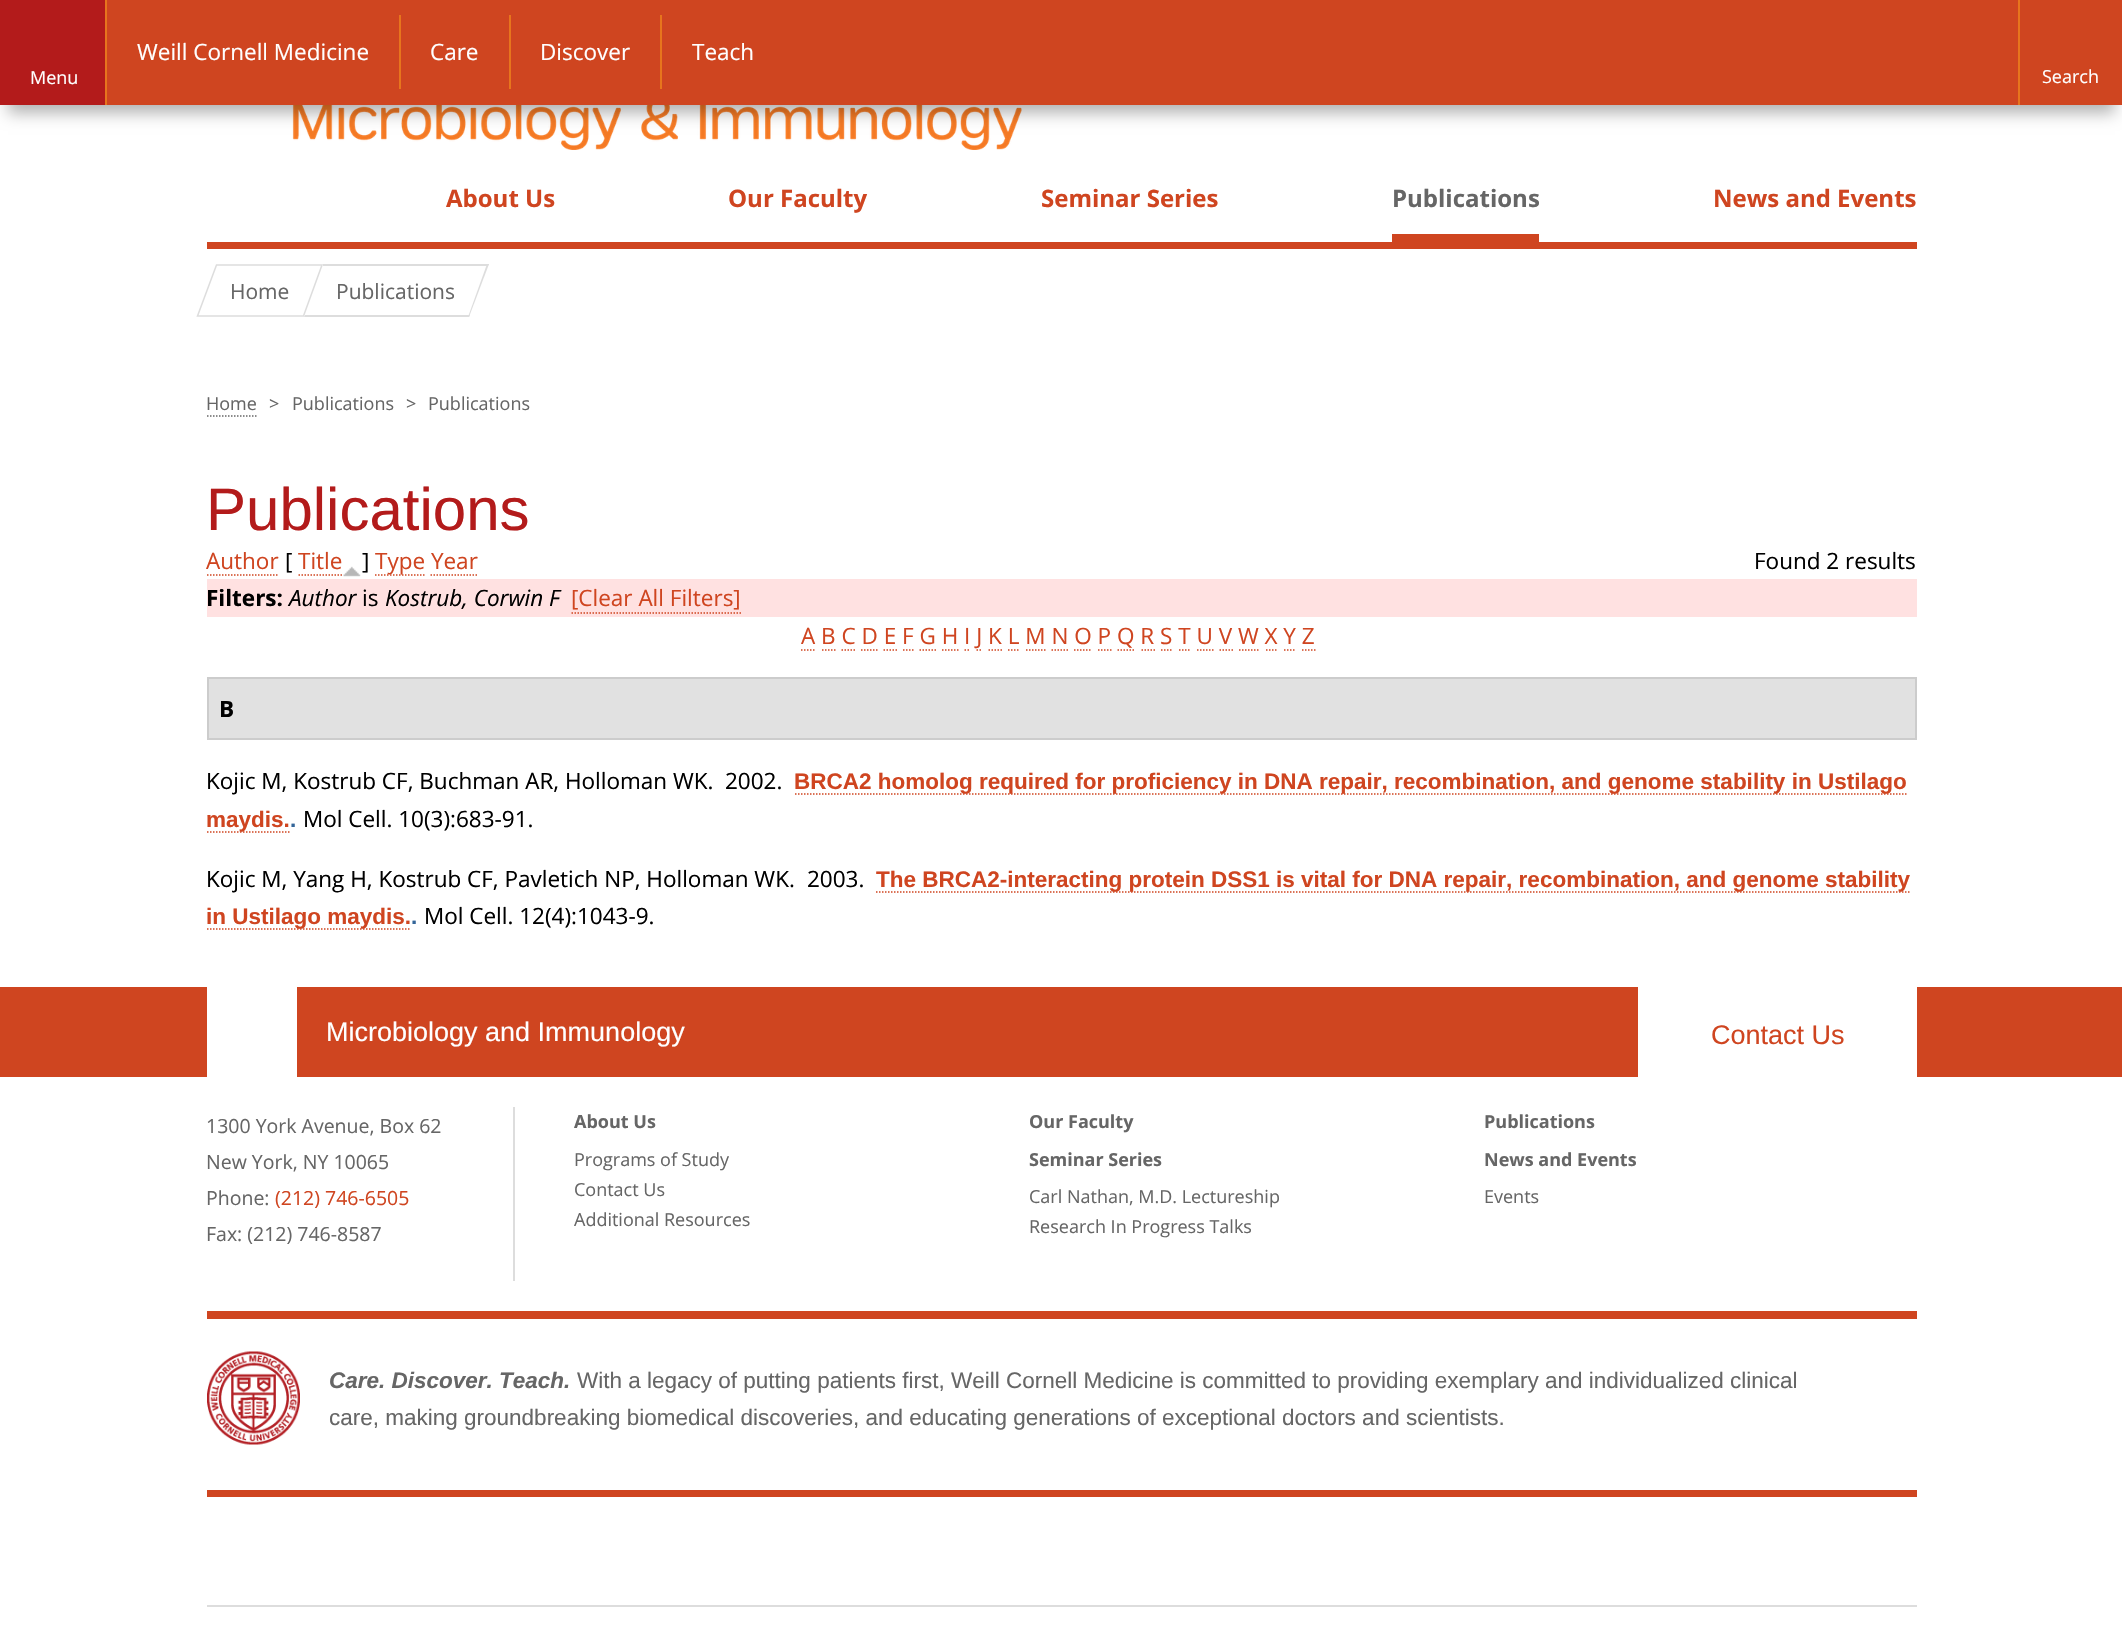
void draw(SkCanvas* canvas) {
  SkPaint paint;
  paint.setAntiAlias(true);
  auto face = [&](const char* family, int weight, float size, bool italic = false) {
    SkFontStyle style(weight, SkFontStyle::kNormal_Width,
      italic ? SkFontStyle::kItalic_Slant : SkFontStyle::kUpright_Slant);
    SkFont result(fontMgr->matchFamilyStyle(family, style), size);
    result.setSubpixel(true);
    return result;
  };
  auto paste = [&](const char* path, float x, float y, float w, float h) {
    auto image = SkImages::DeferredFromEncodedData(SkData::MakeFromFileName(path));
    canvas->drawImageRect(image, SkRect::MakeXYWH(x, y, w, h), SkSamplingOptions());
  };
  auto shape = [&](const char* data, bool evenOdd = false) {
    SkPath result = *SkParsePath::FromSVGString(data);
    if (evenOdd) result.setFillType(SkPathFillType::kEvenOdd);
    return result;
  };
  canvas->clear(0xffffffff);
  paste("img/1.png", 292, 105, 730, 45);
  paint.setColor(0x4d000000);
  paint.setMaskFilter(SkMaskFilter::MakeBlur(kNormal_SkBlurStyle, 7.5f));
  canvas->drawRect(SkRect::MakeXYWH(8, 23, 2107, 90), paint);
  paint.setMaskFilter(nullptr);
  {
    const struct { float x, y, w, h; SkColor color; } items[] = {
      {107, 0, 2015, 105, 0xffcf4520},
      {399, 15, 2, 74, 0xffe7751d},
      {509, 15, 2, 74, 0xffe7751d},
      {660, 15, 2, 74, 0xffe7751d},
      {0, 0, 105, 105, 0xffb31b1b},
      {105, 0, 2, 105, 0xffe7751d},
      {2018, 0, 2, 105, 0xffe7751d},
      {207, 242, 1710, 7, 0xffcf4520},
      {1392, 234, 147, 8, 0xffcf4520},
    };
    for (auto [x, y, w, h, color] : items) {
      paint.setColor(color);
      canvas->drawRect(SkRect::MakeXYWH(x, y, w, h), paint);
    }
  }
  paint.setStroke(true);
  paint.setStrokeWidth(1.5f);
  paint.setColor(0xffdddddd);
  canvas->drawPath(shape("M216.5 265H322L303.5 316H197.5Z"), paint);
  paint.setStroke(false);
  canvas->drawPath(shape("M323 264H489L488 266H323Z"), paint);
  canvas->drawPath(shape("M487 264H489L469 317H468Z"), paint);
  canvas->drawPath(shape("M305 315H470L469 317H304Z"), paint);
  paint.setStroke(true);
  paint.setColor(0xff666666);
  paint.setPathEffect(SkDashPathEffect::Make({{1.5f, 1.5f}}, 0));
  canvas->drawPath(shape("M207 416H256.5"), paint);
  paint.setPathEffect(nullptr);
  paint.setColor(0xffcf4520);
  paint.setPathEffect(SkDashPathEffect::Make({{1.5f, 1.5f}}, 0));
  canvas->drawPath(shape("M207 575H279"), paint);
  paint.setPathEffect(nullptr);
  paint.setPathEffect(SkDashPathEffect::Make({{1.5f, 1.5f}}, 0));
  canvas->drawPath(shape("M298.5 575H342"), paint);
  paint.setPathEffect(nullptr);
  paste("img/2.png", 343, 566, 18, 11);
  paint.setPathEffect(SkDashPathEffect::Make({{1.5f, 1.5f}}, 0));
  canvas->drawPath(shape("M375 575H424.5"), paint);
  paint.setPathEffect(nullptr);
  paint.setPathEffect(SkDashPathEffect::Make({{1.5f, 1.5f}}, 0));
  canvas->drawPath(shape("M430.5 575H478.5"), paint);
  paint.setPathEffect(nullptr);
  paint.setStroke(false);
  paint.setColor(0xffffe1e1);
  canvas->drawRect(SkRect::MakeXYWH(207, 579, 1710, 38), paint);
  paint.setStroke(true);
  paint.setColor(0xffcf4520);
  paint.setPathEffect(SkDashPathEffect::Make({{1.5f, 1.5f}}, 0));
  canvas->drawPath(shape("M571.5 613H741"), paint);
  paint.setPathEffect(nullptr);
  paint.setPathEffect(SkDashPathEffect::Make({{1.5f, 1.5f}}, 0));
  canvas->drawPath(shape("M801 650H816"), paint);
  paint.setPathEffect(nullptr);
  paint.setPathEffect(SkDashPathEffect::Make({{1.5f, 1.5f}}, 0));
  canvas->drawPath(shape("M822 650H835.5M841.5 650H856.5M861 650H877.5"), paint);
  paint.setPathEffect(nullptr);
  paint.setPathEffect(SkDashPathEffect::Make({{1.5f, 1.5f}}, 0));
  canvas->drawPath(shape("M883.5 650H897"), paint);
  paint.setPathEffect(nullptr);
  canvas->drawPath(shape("M903 650H904.5M906 650H907.5M909 650H910.5M912 650H913.5"), paint);
  paint.setPathEffect(SkDashPathEffect::Make({{1.5f, 1.5f}}, 0));
  canvas->drawPath(shape("M919.5 650H936M942 650H958.5"), paint);
  paint.setPathEffect(nullptr);
  canvas->drawPath(shape("M964.5 650H966M967.5 650H969M976.5 650H978M979.5 650H981"), paint);
  paint.setPathEffect(SkDashPathEffect::Make({{1.5f, 1.5f}}, 0));
  canvas->drawPath(shape("M988.5 650H1002M1008 650H1020M1026 650H1045.5"), paint);
  paint.setPathEffect(nullptr);
  paint.setPathEffect(SkDashPathEffect::Make({{1.5f, 1.5f}}, 0));
  canvas->drawPath(shape("M1051.5 650H1069.5M1074 650H1092M1098 650H1111.5"), paint);
  paint.setPathEffect(nullptr);
  paint.setPathEffect(SkDashPathEffect::Make({{1.5f, 1.5f}}, 0));
  canvas->drawPath(shape("M1117.5 650H1135.5M1141.5 650H1155M1161 650H1173"), paint);
  paint.setPathEffect(nullptr);
  paint.setPathEffect(SkDashPathEffect::Make({{1.5f, 1.5f}}, 0));
  canvas->drawPath(shape("M1179 650H1191M1197 650H1213.5M1219.5 650H1233"), paint);
  paint.setPathEffect(nullptr);
  paint.setPathEffect(SkDashPathEffect::Make({{1.5f, 1.5f}}, 0));
  canvas->drawPath(shape("M1239 650H1260M1266 650H1278M1284 650H1296"), paint);
  paint.setPathEffect(nullptr);
  paint.setPathEffect(SkDashPathEffect::Make({{1.5f, 1.5f}}, 0));
  canvas->drawPath(shape("M1302 650H1315.5"), paint);
  paint.setPathEffect(nullptr);
  paint.setStroke(false);
  paint.setColor(0xffe1e1e1);
  canvas->drawRect(SkRect::MakeXYWH(208, 678, 1708, 61), paint);
  paint.setStroke(true);
  paint.setStrokeWidth(2);
  paint.setColor(0xffcccccc);
  canvas->drawRect(SkRect::MakeXYWH(208, 678, 1708, 61), paint);
  paint.setStrokeWidth(1.5f);
  paint.setColor(0xffcf4520);
  paint.setPathEffect(SkDashPathEffect::Make({{1.5f, 1.5f}}, 0));
  canvas->drawPath(shape("M795 794H1906.5"), paint);
  paint.setPathEffect(nullptr);
  paint.setPathEffect(SkDashPathEffect::Make({{1.5f, 1.5f}}, 0));
  canvas->drawPath(shape("M207 832H289.5"), paint);
  paint.setPathEffect(nullptr);
  paint.setPathEffect(SkDashPathEffect::Make({{1.5f, 1.5f}}, 0));
  canvas->drawPath(shape("M876 892H1909.5"), paint);
  paint.setPathEffect(nullptr);
  paint.setPathEffect(SkDashPathEffect::Make({{1.5f, 1.5f}}, 0));
  canvas->drawPath(shape("M207 929H411"), paint);
  paint.setPathEffect(nullptr);
  paint.setStroke(false);
  {
    const struct { float x, y, w, h; SkColor color; } items[] = {
      {0, 987, 2122, 90, 0xffcf4520},
      {207, 987, 90, 90, 0xffffffff},
      {1638, 987, 279, 90, 0xffffffff},
      {207, 1311, 1710, 8, 0xffcf4520},
      {513, 1107, 2, 174, 0xffdddddd},
      {207, 1490, 1710, 7, 0xffcf4520},
    };
    for (auto [x, y, w, h, color] : items) {
      paint.setColor(color);
      canvas->drawRect(SkRect::MakeXYWH(x, y, w, h), paint);
    }
  }
  paste("img/3.png", 207, 1351, 93, 94);
  paint.setColor(0xffdddddd);
  canvas->drawRect(SkRect::MakeXYWH(207, 1605, 1710, 2), paint);
  auto f0 = face("Open Sans", 400, 22.5f);
  paint.setColor(0xffffffff);
  {
    const struct { const char* s; float x, y; } items[] = {
      {"Weill Cornell Medicine", 137, 60},
      {"Care", 430, 60},
      {"Discover", 540, 60},
      {"Teach", 692, 60},
    };
    for (auto [s, x, y] : items) {
      canvas->drawString(s, x, y, f0, paint);
    }
  }
  auto f1 = face("Open Sans", 400, 18);
  canvas->drawString("Menu", 30, 84, f1, paint);
  canvas->drawString("Search", 2042, 83, f1, paint);
  auto f2 = face("Open Sans", 700, 24);
  paint.setColor(0xffcf4520);
  {
    const struct { const char* s; float x, y; } items[] = {
      {"About Us", 446, 207},
      {"Our Faculty", 728, 207},
      {"Seminar Series", 1041, 207},
    };
    for (auto [s, x, y] : items) {
      canvas->drawString(s, x, y, f2, paint);
    }
  }
  paint.setColor(0xff666666);
  canvas->drawString("Publications", 1392, 207, f2, paint);
  paint.setColor(0xffcf4520);
  canvas->drawString("News and Events", 1713, 207, f2, paint);
  auto f3 = face("Open Sans", 400, 21);
  paint.setColor(0xff666666);
  canvas->drawString("Home", 230, 299, f3, paint);
  canvas->drawString("Publications", 336, 299, f3, paint);
  {
    const struct { const char* s; float x, y; } items[] = {
      {"Home", 206, 410},
      {">", 269, 410},
      {"Publications", 292, 410},
      {">", 406, 410},
      {"Publications", 428, 410},
    };
    for (auto [s, x, y] : items) {
      canvas->drawString(s, x, y, f1, paint);
    }
  }
  auto f4 = face("Liberation Sans", 400, 60);
  paint.setColor(0xffb31b1b);
  canvas->drawString("Publications", 206, 530, f4, paint);
  paint.setColor(0xffcf4520);
  canvas->drawString("Author", 206, 569, f0, paint);
  paint.setColor(0xff000000);
  canvas->drawString("[", 285, 569, f0, paint);
  paint.setColor(0xffcf4520);
  canvas->drawString("Title", 298, 569, f0, paint);
  paint.setColor(0xff000000);
  canvas->drawString("]", 362, 569, f0, paint);
  paint.setColor(0xffcf4520);
  canvas->drawString("Type Year", 375, 569, f0, paint);
  paint.setColor(0xff000000);
  canvas->drawString("Found 2 results", 1754, 569, f0, paint);
  auto f5 = face("Open Sans", 700, 22.5f);
  canvas->drawString("Filters:", 206, 606, f5, paint);
  auto f6 = face("Open Sans", 400, 22.5f, true);
  canvas->drawString("Author", 289, 606, f6, paint);
  canvas->drawString("is", 362, 606, f0, paint);
  canvas->drawString("Kostrub, Corwin F", 385, 606, f6, paint);
  paint.setColor(0xffcf4520);
  canvas->drawString("[Clear All Filters]", 571, 606, f0, paint);
  canvas->drawString("A B C D E F G H I J K L M N O P Q R S T U V W X Y Z", 801, 644, f0, paint);
  paint.setColor(0xff000000);
  canvas->drawString("B", 219, 717, f5, paint);
  canvas->drawString("Kojic M, Kostrub CF, Buchman AR, Holloman WK.", 206, 789, f0, paint);
  canvas->drawString("2002.", 725, 789, f0, paint);
  auto f7 = face("Liberation Sans", 700, 22.5f);
  paint.setColor(0xffcf4520);
  canvas->drawString("BRCA2 homolog required for proficiency in DNA repair, recombination, and genome stability in Ustilago", 794, 789, f7, paint);
  canvas->drawString("maydis.", 206, 827, f7, paint);
  paint.setColor(0xff336599);
  canvas->drawString(".", 290, 827, f7, paint);
  paint.setColor(0xff000000);
  {
    const struct { const char* s; float x, y; } items[] = {
      {"Mol Cell. 10(3):683-91.", 303, 827},
      {"Kojic M, Yang H, Kostrub CF, Pavletich NP, Holloman WK.", 206, 887},
      {"2003.", 807, 887},
    };
    for (auto [s, x, y] : items) {
      canvas->drawString(s, x, y, f0, paint);
    }
  }
  paint.setColor(0xffcf4520);
  canvas->drawString("The BRCA2-interacting protein DSS1 is vital for DNA repair, recombination, and genome stability", 876, 887, f7, paint);
  canvas->drawString("in Ustilago maydis.", 206, 924, f7, paint);
  paint.setColor(0xff336599);
  canvas->drawString(".", 411, 924, f7, paint);
  paint.setColor(0xff000000);
  canvas->drawString("Mol Cell. 12(4):1043-9.", 424, 924, f0, paint);
  auto f8 = face("Liberation Sans", 400, 27);
  paint.setColor(0xffffffff);
  canvas->drawString("Microbiology and Immunology", 326, 1041, f8, paint);
  paint.setColor(0xffcf4520);
  canvas->drawString("Contact Us", 1711, 1044, f8, paint);
  auto f9 = face("Open Sans", 400, 19.5f);
  paint.setColor(0xff666666);
  {
    const struct { const char* s; float x, y; } items[] = {
      {"1300 York Avenue, Box 62", 206, 1133},
      {"New York, NY 10065", 206, 1169},
      {"Phone:", 206, 1205},
    };
    for (auto [s, x, y] : items) {
      canvas->drawString(s, x, y, f9, paint);
    }
  }
  paint.setColor(0xffcf4520);
  canvas->drawString("(212) 746-6505", 275, 1205, f9, paint);
  paint.setColor(0xff666666);
  canvas->drawString("Fax: (212) 746-8587", 206, 1241, f9, paint);
  auto f10 = face("Open Sans", 700, 18);
  canvas->drawString("About Us", 574, 1128, f10, paint);
  {
    const struct { const char* s; float x, y; } items[] = {
      {"Programs of Study", 574, 1166},
      {"Contact Us", 574, 1196},
      {"Additional Resources", 574, 1226},
    };
    for (auto [s, x, y] : items) {
      canvas->drawString(s, x, y, f1, paint);
    }
  }
  {
    const struct { const char* s; float x, y; } items[] = {
      {"Our Faculty", 1029, 1128},
      {"Publications", 1484, 1128},
      {"Seminar Series", 1029, 1166},
    };
    for (auto [s, x, y] : items) {
      canvas->drawString(s, x, y, f10, paint);
    }
  }
  canvas->drawString("Carl Nathan, M.D. Lectureship", 1029, 1203, f1, paint);
  canvas->drawString("Research In Progress Talks", 1029, 1233, f1, paint);
  canvas->drawString("News and Events", 1484, 1166, f10, paint);
  canvas->drawString("Events", 1484, 1203, f1, paint);
  auto f11 = face("Liberation Sans", 700, 22.5f, true);
  canvas->drawString("Care. Discover. Teach.", 329, 1388, f11, paint);
  auto f12 = face("Liberation Sans", 400, 22.5f);
  canvas->drawString("With a legacy of putting patients first, Weill Cornell Medicine is committed to providing exemplary and individualized clinical", 577, 1388, f12, paint);
  canvas->drawString("care, making groundbreaking biomedical discoveries, and educating generations of exceptional doctors and scientists.", 329, 1425, f12, paint);
}
